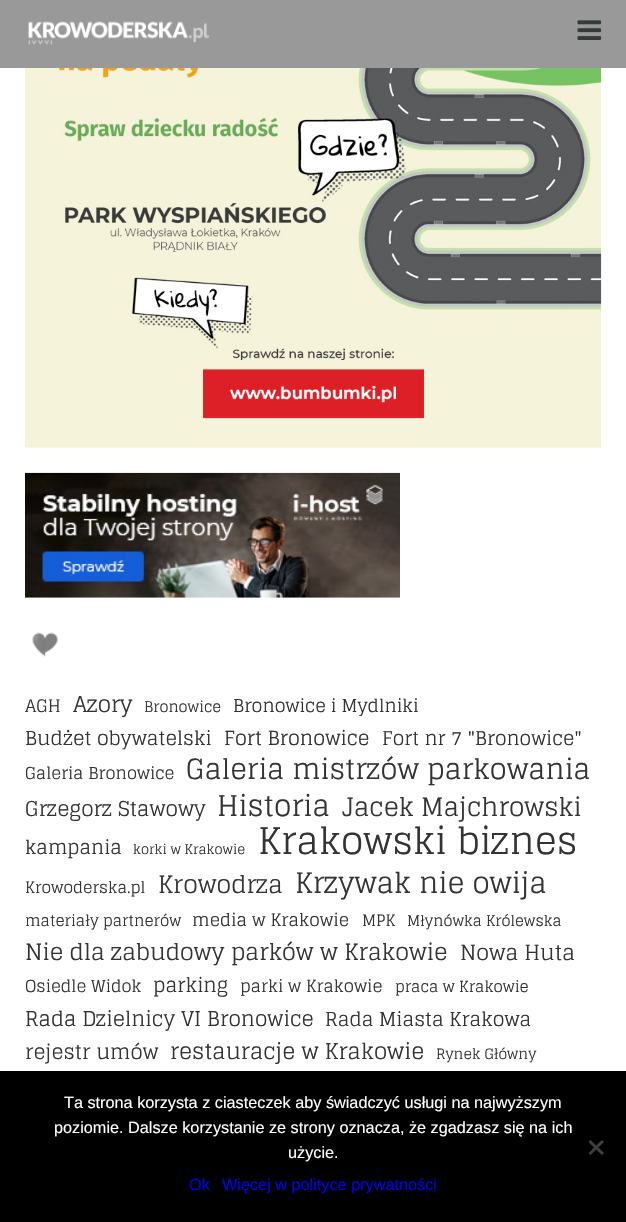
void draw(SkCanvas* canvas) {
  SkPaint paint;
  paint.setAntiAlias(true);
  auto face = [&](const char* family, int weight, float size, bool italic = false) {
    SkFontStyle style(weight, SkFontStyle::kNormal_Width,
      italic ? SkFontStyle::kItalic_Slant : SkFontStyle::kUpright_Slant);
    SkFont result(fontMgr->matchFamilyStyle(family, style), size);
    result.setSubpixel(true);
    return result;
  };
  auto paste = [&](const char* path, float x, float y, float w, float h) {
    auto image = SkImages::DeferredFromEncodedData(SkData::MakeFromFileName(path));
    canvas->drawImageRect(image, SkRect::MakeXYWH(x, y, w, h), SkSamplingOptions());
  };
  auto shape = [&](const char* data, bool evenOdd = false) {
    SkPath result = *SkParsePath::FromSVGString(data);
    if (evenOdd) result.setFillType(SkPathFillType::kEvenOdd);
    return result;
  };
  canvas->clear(0xffffffff);
  paint.setColor(0xff999999);
  canvas->drawRect(SkRect::MakeXYWH(0, 0, 626, 68), paint);
  paste("img/1.png", 28, 21, 182, 24);
  paste("img/2.png", 577, 20, 25, 20);
  paste("img/3.png", 25, 68, 577, 380);
  paste("img/4.png", 25, 472, 375, 126);
  paste("img/5.png", 32, 632, 26, 25);
  paint.setColor(0xff000000);
  canvas->drawRect(SkRect::MakeXYWH(0, 1071, 626, 151), paint);
  paint.setColor(0xff404040);
  canvas->drawPath(shape("M602 1140L604 1142L590.5 1155L588.5 1153Z"), paint);
  canvas->drawPath(shape("M588.5 1142L590.5 1140L604 1153L602 1155Z"), paint);
  auto f0 = face("Glegoo", 400, 17.25f);
  paint.setColor(0xff333333);
  canvas->drawString("AGH", 25, 712, f0, paint);
  auto f1 = face("Glegoo", 400, 21.75f);
  canvas->drawString("Azory", 73, 712, f1, paint);
  auto f2 = face("Glegoo", 400, 14.75f);
  canvas->drawString("Bronowice", 144, 712, f2, paint);
  auto f3 = face("Glegoo", 400, 17.75f);
  canvas->drawString("Bronowice i Mydlniki", 233, 712, f3, paint);
  auto f4 = face("Glegoo", 400, 19.25f);
  canvas->drawString("Budżet obywatelski", 25, 745, f4, paint);
  auto f5 = face("Glegoo", 400, 19.5f);
  canvas->drawString("Fort Bronowice", 224, 745, f5, paint);
  auto f6 = face("Glegoo", 400, 19);
  canvas->drawString("Fort nr 7 \"Bronowice\"", 382, 745, f6, paint);
  auto f7 = face("Glegoo", 400, 16.5f);
  canvas->drawString("Galeria Bronowice", 25, 779, f7, paint);
  auto f8 = face("Glegoo", 400, 27.75f);
  canvas->drawString("Galeria mistrzów parkowania", 186, 779, f8, paint);
  auto f9 = face("Glegoo", 400, 20.4f);
  canvas->drawString("Grzegorz Stawowy", 25, 816, f9, paint);
  auto f10 = face("Glegoo", 400, 28.5f);
  canvas->drawString("Historia", 217, 816, f10, paint);
  auto f11 = face("Glegoo", 400, 25.25f);
  canvas->drawString("Jacek Majchrowski", 342, 816, f11, paint);
  canvas->drawString("kampania", 25, 854, f6, paint);
  auto f12 = face("Glegoo", 400, 13.25f);
  canvas->drawString("korki w Krakowie", 133, 854, f12, paint);
  auto f13 = face("Glegoo", 400, 36.75f);
  canvas->drawString("Krakowski biznes", 258, 854, f13, paint);
  auto f14 = face("Glegoo", 400, 15.75f);
  canvas->drawString("Krowoderska.pl", 25, 893, f14, paint);
  auto f15 = face("Glegoo", 400, 24);
  canvas->drawString("Krowodrza", 158, 893, f15, paint);
  auto f16 = face("Glegoo", 400, 28.25f);
  canvas->drawString("Krzywak nie owija", 295, 893, f16, paint);
  auto f17 = face("Glegoo", 400, 15.25f);
  canvas->drawString("materiały partnerów", 25, 926, f17, paint);
  canvas->drawString("media w Krakowie", 192, 926, f0, paint);
  canvas->drawString("MPK", 362, 926, f14, paint);
  canvas->drawString("Młynówka Królewska", 407, 926, f2, paint);
  auto f18 = face("Glegoo", 400, 22.6f);
  canvas->drawString("Nie dla zabudowy parków w Krakowie", 25, 960, f18, paint);
  auto f19 = face("Glegoo", 400, 21);
  canvas->drawString("Nowa Huta", 460, 960, f19, paint);
  canvas->drawString("Osiedle Widok", 25, 992, f7, paint);
  canvas->drawString("parking", 153, 992, f5, paint);
  auto f20 = face("Glegoo", 400, 16.75f);
  canvas->drawString("parki w Krakowie", 240, 992, f20, paint);
  canvas->drawString("praca w Krakowie", 395, 992, f17, paint);
  canvas->drawString("Rada Dzielnicy VI Bronowice", 25, 1026, f9, paint);
  canvas->drawString("Rada Miasta Krakowa", 325, 1026, f4, paint);
  auto f21 = face("Glegoo", 400, 20);
  canvas->drawString("rejestr umów", 25, 1059, f21, paint);
  canvas->drawString("restauracje w Krakowie", 170, 1059, f1, paint);
  auto f22 = face("Glegoo", 400, 14.25f);
  canvas->drawString("Rynek Główny", 436, 1059, f22, paint);
  auto f23 = face("Liberation Sans", 400, 16.25f);
  paint.setColor(0xffffffff);
  {
    const struct { const char* s; float x, y; } items[] = {
      {"Ta strona korzysta z ciasteczek aby świadczyć usługi na najwyższym", 64, 1108},
      {"poziomie. Dalsze korzystanie ze strony oznacza, że zgadzasz się na ich", 54, 1133},
      {"użycie.", 288, 1158},
    };
    for (auto [s, x, y] : items) {
      canvas->drawString(s, x, y, f23, paint);
    }
  }
  paint.setColor(0xff0000ee);
  canvas->drawString("Ok", 189, 1190, f23, paint);
  canvas->drawString("Więcej w polityce prywatności", 222, 1190, f23, paint);
}
